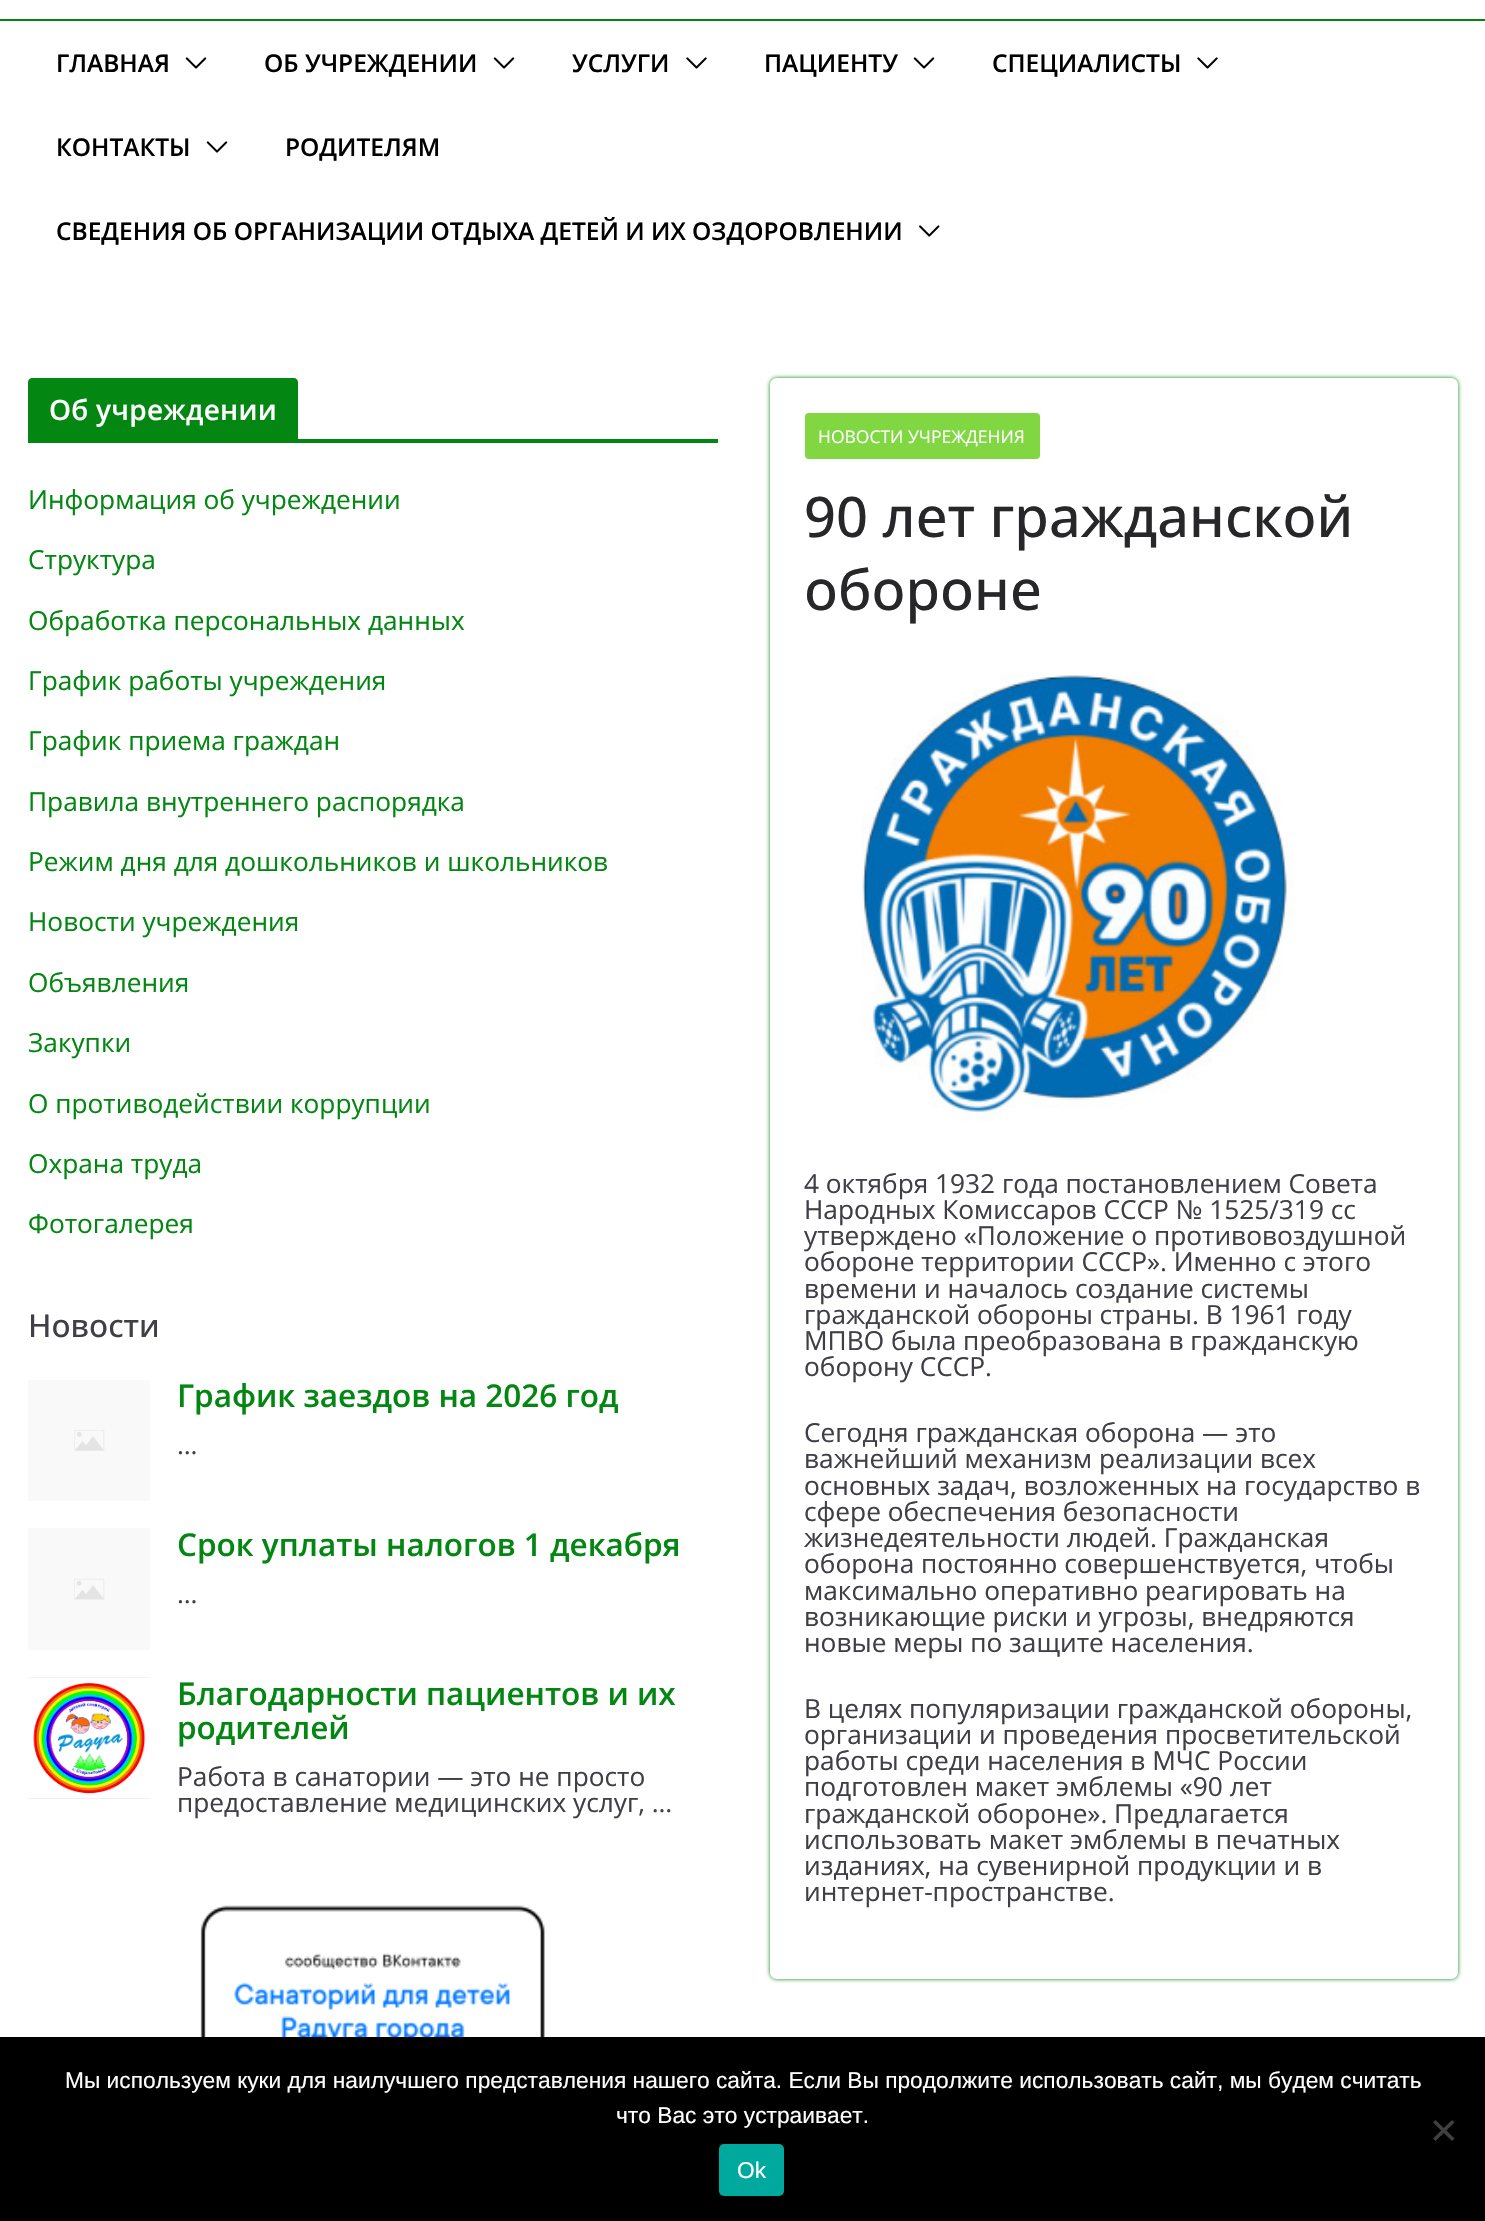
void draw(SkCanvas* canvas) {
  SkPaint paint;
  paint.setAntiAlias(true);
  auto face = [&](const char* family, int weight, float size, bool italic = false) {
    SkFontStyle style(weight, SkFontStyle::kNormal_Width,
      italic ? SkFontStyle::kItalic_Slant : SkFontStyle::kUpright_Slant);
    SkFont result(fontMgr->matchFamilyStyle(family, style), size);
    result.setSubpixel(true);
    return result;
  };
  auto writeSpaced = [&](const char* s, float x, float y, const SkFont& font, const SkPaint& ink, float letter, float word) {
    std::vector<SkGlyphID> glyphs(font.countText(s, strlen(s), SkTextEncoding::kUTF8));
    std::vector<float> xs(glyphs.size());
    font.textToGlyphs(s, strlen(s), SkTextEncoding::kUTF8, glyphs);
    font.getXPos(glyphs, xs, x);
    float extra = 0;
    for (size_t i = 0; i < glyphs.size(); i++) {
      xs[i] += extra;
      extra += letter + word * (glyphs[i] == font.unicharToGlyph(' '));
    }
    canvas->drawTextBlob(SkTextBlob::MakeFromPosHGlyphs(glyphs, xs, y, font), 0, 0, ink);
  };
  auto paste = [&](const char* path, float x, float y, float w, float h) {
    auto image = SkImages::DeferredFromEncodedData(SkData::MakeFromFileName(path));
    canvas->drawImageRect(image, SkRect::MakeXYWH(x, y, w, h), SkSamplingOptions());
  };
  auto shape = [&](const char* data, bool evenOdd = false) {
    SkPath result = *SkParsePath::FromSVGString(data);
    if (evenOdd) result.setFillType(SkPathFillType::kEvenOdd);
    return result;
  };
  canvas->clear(0xffffffff);
  paint.setColor(0xff038712);
  canvas->drawRect(SkRect::MakeXYWH(0, 19, 1485, 2), paint);
  paste("img/1.png", 185, 57, 22, 12);
  paste("img/1.png", 493, 57, 22, 12);
  paste("img/2.png", 686, 57, 21, 12);
  paste("img/1.png", 913, 57, 22, 12);
  paste("img/2.png", 1197, 57, 21, 12);
  paste("img/1.png", 206, 141, 22, 12);
  paste("img/3.png", 919, 225, 21, 12);
  canvas->drawRect(SkRect::MakeXYWH(28, 439, 690, 4), paint);
  canvas->drawPath(shape("M32 378H294C296 378 298 380 298 382V439H28V382C28 380 30 378 32 378Z"), paint);
  paste("img/4.png", 28, 1380, 122, 121);
  paste("img/5.png", 28, 1528, 122, 122);
  paste("img/6.png", 28, 1677, 123, 122);
  paste("img/7.png", 200, 1905, 345, 132);
  canvas->save();
  canvas->clipPath(shape("M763 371H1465V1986H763ZM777 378H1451C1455 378 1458 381 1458 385V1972C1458 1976 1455 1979 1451 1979H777C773 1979 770 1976 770 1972V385C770 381 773 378 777 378Z", true), true);
  paint.setMaskFilter(SkMaskFilter::MakeBlur(kNormal_SkBlurStyle, 2));
  canvas->drawRoundRect(SkRect::MakeXYWH(770, 378, 688, 1601), 7, 7, paint);
  paint.setMaskFilter(nullptr);
  canvas->restore();
  paint.setColor(0xff81d742);
  canvas->drawRoundRect(SkRect::MakeXYWH(805, 413, 235, 46), 4, 4, paint);
  paste("img/8.png", 861, 674, 434, 448);
  paint.setColor(0xff000000);
  canvas->drawRect(SkRect::MakeXYWH(0, 2037, 1485, 184), paint);
  paint.setColor(0xff404040);
  canvas->drawPath(shape("M1452 2120L1454.5 2122.5L1435.5 2141L1433 2138.5Z"), paint);
  canvas->drawPath(shape("M1433 2122.5L1435.5 2120L1454.5 2138.5L1452 2141Z"), paint);
  paint.setColor(0xff00a99d);
  canvas->drawRoundRect(SkRect::MakeXYWH(719, 2144, 65, 52), 5, 5, paint);
  auto f0 = face("Open Sans", 600, 24.5f);
  paint.setColor(0xff000000);
  {
    const struct { const char* s; float x, y; } items[] = {
      {"ГЛАВНАЯ", 56, 72},
      {"ОБ УЧРЕЖДЕНИИ", 264, 72},
      {"УСЛУГИ", 572, 72},
      {"ПАЦИЕНТУ", 764, 72},
      {"СПЕЦИАЛИСТЫ", 992, 72},
      {"КОНТАКТЫ", 56, 156},
      {"РОДИТЕЛЯМ", 285, 156},
      {"СВЕДЕНИЯ ОБ ОРГАНИЗАЦИИ ОТДЫХА ДЕТЕЙ И ИХ ОЗДОРОВЛЕНИИ", 56, 240},
    };
    for (auto [s, x, y] : items) {
      canvas->drawString(s, x, y, f0, paint);
    }
  }
  auto f1 = face("Open Sans", 600, 28);
  paint.setColor(0xffffffff);
  writeSpaced("Об учреждении", 49, 420, f1, paint, 0.25f, 0);
  auto f2 = face("Open Sans", 400, 26.25f);
  paint.setColor(0xff038712);
  {
    const struct { const char* s; float x, y; } items[] = {
      {"Информация об учреждении", 28, 509},
      {"Структура", 28, 569},
      {"Обработка персональных данных", 28, 630},
      {"График работы учреждения", 28, 690},
      {"График приема граждан", 28, 750},
      {"Правила внутреннего распорядка", 28, 811},
      {"Режим дня для дошкольников и школьников", 28, 871},
      {"Новости учреждения", 28, 931},
      {"Объявления", 28, 992},
      {"Закупки", 28, 1052},
      {"О противодействии коррупции", 28, 1113},
      {"Охрана труда", 28, 1173},
      {"Фотогалерея", 28, 1233},
    };
    for (auto [s, x, y] : items) {
      canvas->drawString(s, x, y, f2, paint);
    }
  }
  auto f3 = face("Open Sans", 500, 31.5f);
  paint.setColor(0xff3f3f46);
  canvas->drawString("Новости", 28, 1337, f3, paint);
  auto f4 = face("Open Sans", 600, 31.5f);
  paint.setColor(0xff038712);
  canvas->drawString("График заездов на 2026 год", 177, 1407, f4, paint);
  paint.setColor(0xff3f3f46);
  canvas->drawString("…", 177, 1454, f2, paint);
  paint.setColor(0xff038712);
  canvas->drawString("Срок уплаты налогов 1 декабря", 177, 1556, f4, paint);
  paint.setColor(0xff3f3f46);
  canvas->drawString("…", 177, 1603, f2, paint);
  paint.setColor(0xff038712);
  canvas->drawString("Благодарности пациентов и их", 177, 1705, f4, paint);
  canvas->drawString("родителей", 177, 1739, f4, paint);
  paint.setColor(0xff3f3f46);
  canvas->drawString("Работа в санатории — это не просто", 177, 1786, f2, paint);
  canvas->drawString("предоставление медицинских услуг, …", 177, 1812, f2, paint);
  auto f5 = face("Open Sans", 400, 17.5f);
  paint.setColor(0xffffffff);
  canvas->drawString("НОВОСТИ УЧРЕЖДЕНИЯ", 818, 443, f5, paint);
  auto f6 = face("Open Sans", 500, 56);
  paint.setColor(0xff27272a);
  canvas->drawString("90 лет гражданской", 804, 537, f6, paint);
  canvas->drawString("обороне", 804, 610, f6, paint);
  paint.setColor(0xff3f3f46);
  {
    const struct { const char* s; float x, y; } items[] = {
      {"4 октября 1932 года постановлением Совета", 804, 1193},
      {"Народных Комиссаров СССР № 1525/319 сс", 804, 1219},
      {"утверждено «Положение о противовоздушной", 804, 1245},
      {"обороне территории СССР». Именно с этого", 804, 1271},
      {"времени и началось создание системы", 804, 1298},
      {"гражданской обороны страны. В 1961 году", 804, 1324},
      {"МПВО была преобразована в гражданскую", 804, 1350},
      {"оборону СССР.", 804, 1376},
      {"Сегодня гражданская оборона — это", 804, 1442},
      {"важнейший механизм реализации всех", 804, 1468},
      {"основных задач, возложенных на государство в", 804, 1495},
      {"сфере обеспечения безопасности", 804, 1521},
      {"жизнедеятельности людей. Гражданская", 804, 1547},
      {"оборона постоянно совершенствуется, чтобы", 804, 1573},
      {"максимально оперативно реагировать на", 804, 1600},
      {"возникающие риски и угрозы, внедряются", 804, 1626},
      {"новые меры по защите населения.", 804, 1652},
      {"В целях популяризации гражданской обороны,", 804, 1718},
      {"организации и проведения просветительской", 804, 1744},
      {"работы среди населения в МЧС России", 804, 1770},
      {"подготовлен макет эмблемы «90 лет", 804, 1796},
      {"гражданской обороне». Предлагается", 804, 1823},
      {"использовать макет эмблемы в печатных", 804, 1849},
      {"изданиях, на сувенирной продукции и в", 804, 1875},
      {"интернет-пространстве.", 804, 1901},
    };
    for (auto [s, x, y] : items) {
      canvas->drawString(s, x, y, f2, paint);
    }
  }
  auto f7 = face("Liberation Sans", 400, 22.75f);
  paint.setColor(0xffffffff);
  {
    const struct { const char* s; float x, y; } items[] = {
      {"Мы используем куки для наилучшего представления нашего сайта. Если Вы продолжите использовать сайт, мы будем считать", 65, 2088},
      {"что Вас это устраивает.", 616, 2123},
      {"Ok", 737, 2178},
    };
    for (auto [s, x, y] : items) {
      canvas->drawString(s, x, y, f7, paint);
    }
  }
}
